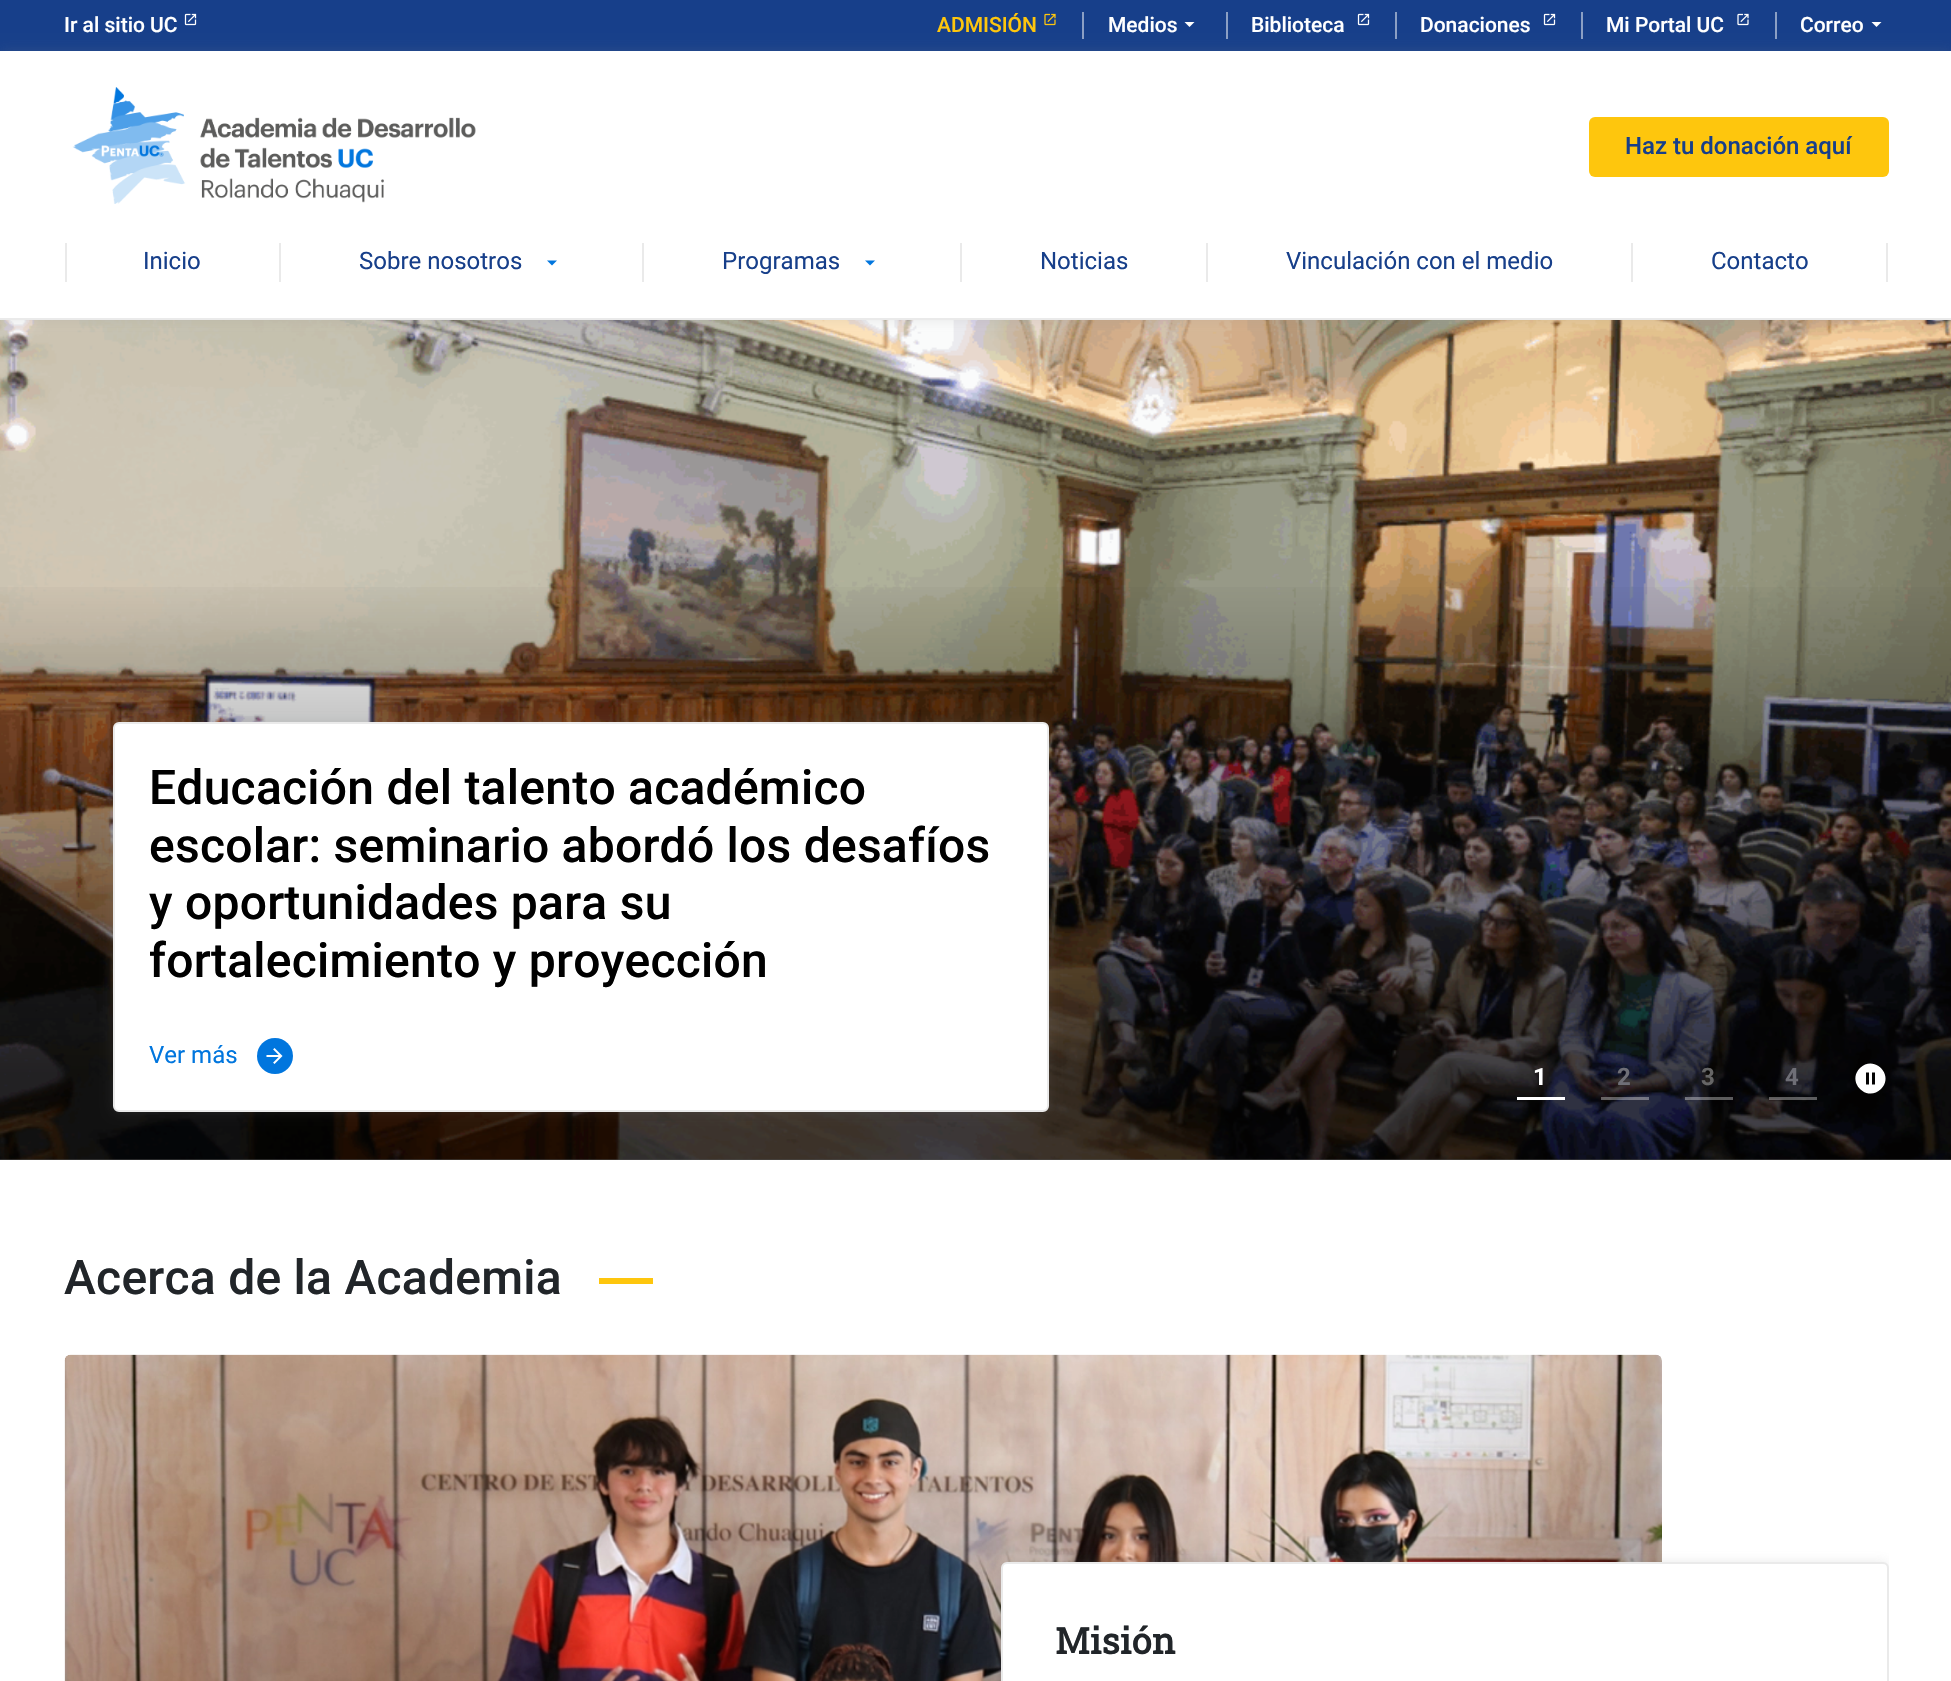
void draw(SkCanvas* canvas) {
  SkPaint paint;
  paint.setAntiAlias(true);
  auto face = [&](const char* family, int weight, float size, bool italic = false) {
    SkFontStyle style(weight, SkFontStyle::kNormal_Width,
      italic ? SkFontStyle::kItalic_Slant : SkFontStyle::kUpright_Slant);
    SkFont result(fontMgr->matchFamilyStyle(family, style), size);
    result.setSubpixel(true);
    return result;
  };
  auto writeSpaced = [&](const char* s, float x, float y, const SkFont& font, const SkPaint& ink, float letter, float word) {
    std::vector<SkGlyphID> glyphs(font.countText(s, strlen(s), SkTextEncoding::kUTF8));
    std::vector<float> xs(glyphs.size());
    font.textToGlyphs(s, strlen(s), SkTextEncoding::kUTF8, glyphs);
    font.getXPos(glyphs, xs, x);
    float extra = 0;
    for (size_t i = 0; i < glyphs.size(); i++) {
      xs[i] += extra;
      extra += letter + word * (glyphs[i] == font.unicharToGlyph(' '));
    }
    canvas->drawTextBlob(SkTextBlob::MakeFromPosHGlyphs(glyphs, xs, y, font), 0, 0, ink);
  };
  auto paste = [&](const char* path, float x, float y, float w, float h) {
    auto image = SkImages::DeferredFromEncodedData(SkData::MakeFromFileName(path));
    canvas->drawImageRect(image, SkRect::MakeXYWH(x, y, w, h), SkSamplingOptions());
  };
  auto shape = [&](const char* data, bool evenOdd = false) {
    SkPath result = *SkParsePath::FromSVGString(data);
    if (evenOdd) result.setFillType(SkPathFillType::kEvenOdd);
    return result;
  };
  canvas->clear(0xffffffff);
  paint.setColor(0xff173f8a);
  canvas->drawRect(SkRect::MakeXYWH(0, 0, 1951, 51), paint);
  paste("img/1.png", 184, 13, 13, 13);
  paste("img/2.png", 1044, 13, 12, 13);
  paint.setColor(0xff8b9fc4);
  canvas->drawRect(SkRect::MakeXYWH(1082, 12, 2, 27), paint);
  paint.setColor(0xffffffff);
  canvas->drawPath(shape("M1184.5 22H1194.5L1189.5 27Z"), paint);
  paint.setColor(0xff8b9fc4);
  canvas->drawRect(SkRect::MakeXYWH(1226, 12, 2, 27), paint);
  paste("img/1.png", 1357, 13, 13, 13);
  canvas->drawRect(SkRect::MakeXYWH(1395, 12, 2, 27), paint);
  paste("img/1.png", 1543, 13, 13, 13);
  canvas->drawRect(SkRect::MakeXYWH(1581, 12, 2, 27), paint);
  paste("img/3.png", 1737, 13, 12, 13);
  canvas->drawRect(SkRect::MakeXYWH(1775, 12, 2, 27), paint);
  paint.setColor(0xffffffff);
  canvas->drawPath(shape("M1871.5 22H1881.5L1876.5 27Z"), paint);
  paste("img/5.png", 0, 320, 1951, 840);
  paint.setColor(0x2e888888);
  paint.setMaskFilter(SkMaskFilter::MakeBlur(kNormal_SkBlurStyle, 6));
  canvas->drawRect(SkRect::MakeXYWH(0, 51, 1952, 269), paint);
  paint.setMaskFilter(nullptr);
  paint.setColor(0xffffffff);
  canvas->drawRect(SkRect::MakeXYWH(0, 51, 1951, 267), paint);
  paint.setColor(0xffeaeaea);
  canvas->drawRect(SkRect::MakeXYWH(0, 318, 1951, 2), paint);
  paste("img/4.png", 72, 87, 404, 117);
  paint.setColor(0xfffec60d);
  canvas->drawRoundRect(SkRect::MakeXYWH(1589, 117, 300, 60), 6, 6, paint);
  {
    const struct { float x, y, w, h; SkColor color; } items[] = {
      {279, 243, 2, 39, 0xffeaeaea},
      {65, 243, 2, 39, 0xffeaeaea},
      {642, 243, 2, 39, 0xffeaeaea},
    };
    for (auto [x, y, w, h, color] : items) {
      paint.setColor(color);
      canvas->drawRect(SkRect::MakeXYWH(x, y, w, h), paint);
    }
  }
  paint.setColor(0xff0176de);
  canvas->drawPath(shape("M547 260.5H557L552 265.5Z"), paint);
  paint.setColor(0xffeaeaea);
  canvas->drawRect(SkRect::MakeXYWH(960, 243, 2, 39), paint);
  paint.setColor(0xff0176de);
  canvas->drawPath(shape("M865 260.5H875L870 265.5Z"), paint);
  {
    const struct { float x, y, w, h; SkColor color; } items[] = {
      {1206, 243, 2, 39, 0xffeaeaea},
      {1631, 243, 2, 39, 0xffeaeaea},
      {1886, 243, 2, 39, 0xffeaeaea},
    };
    for (auto [x, y, w, h, color] : items) {
      paint.setColor(color);
      canvas->drawRect(SkRect::MakeXYWH(x, y, w, h), paint);
    }
  }
  {
    const SkColor colors[] = {0x00000000, 0xb3000000};
    const float stops[] = {0.3f, 0.9f};
    const SkPoint ends[] = {{976, 319}, {976, 1160}};
    paint.setShader(SkGradientShader::MakeLinear(ends, colors, stops, 2, SkTileMode::kClamp));
    paint.setAlpha(255);
  }
  canvas->drawRect(SkRect::MakeXYWH(0, 587, 1951, 573), paint);
  paint.setShader(nullptr);
  paint.setColor(0x2e888888);
  paint.setMaskFilter(SkMaskFilter::MakeBlur(kNormal_SkBlurStyle, 6));
  canvas->drawRoundRect(SkRect::MakeXYWH(113, 722, 936, 390), 6, 6, paint);
  paint.setMaskFilter(nullptr);
  paint.setColor(0xffffffff);
  canvas->drawRoundRect(SkRect::MakeXYWH(114, 723, 934, 388), 5, 5, paint);
  paint.setStroke(true);
  paint.setStrokeWidth(2);
  paint.setColor(0xffeaeaea);
  canvas->drawRoundRect(SkRect::MakeXYWH(114, 723, 934, 388), 5, 5, paint);
  paint.setStroke(false);
  paint.setColor(0xff0176de);
  canvas->drawCircle(275, 1056, 18, paint);
  paste("img/6.png", 266, 1048, 17, 16);
  {
    const struct { float x, y, w, h; SkColor color; } items[] = {
      {1517, 1097, 48, 3, 0xffffffff},
      {1601, 1097, 48, 3, 0x59ffffff},
      {1685, 1097, 48, 3, 0x59ffffff},
      {1769, 1097, 48, 3, 0x59ffffff},
    };
    for (auto [x, y, w, h, color] : items) {
      paint.setColor(color);
      canvas->drawRect(SkRect::MakeXYWH(x, y, w, h), paint);
    }
  }
  paint.setColor(0xffffffff);
  canvas->drawPath(shape("M1875 1084.5V1072.5H1872V1084.5ZM1869 1084.5V1072.5H1866V1084.5ZM1860 1068C1874 1054 1895 1075 1881 1089C1867 1103 1846 1082 1860 1068Z"), paint);
  paint.setColor(0xfffec60d);
  canvas->drawRect(SkRect::MakeXYWH(599, 1278, 54, 6), paint);
  paste("img/7.png", 64, 1354, 1598, 327);
  canvas->save();
  canvas->clipRect(SkRect::MakeXYWH(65, 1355, 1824, 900));
  paint.setColor(0x2e888888);
  paint.setMaskFilter(SkMaskFilter::MakeBlur(kNormal_SkBlurStyle, 6));
  canvas->drawRoundRect(SkRect::MakeXYWH(1001, 1562, 888, 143), 6, 6, paint);
  paint.setMaskFilter(nullptr);
  canvas->restore();
  paint.setColor(0xffffffff);
  canvas->drawRoundRect(SkRect::MakeXYWH(1002, 1563, 886, 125), 5, 5, paint);
  paint.setStroke(true);
  paint.setColor(0xffeaeaea);
  canvas->drawRoundRect(SkRect::MakeXYWH(1002, 1563, 886, 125), 5, 5, paint);
  auto f0 = face("Roboto", 500, 21);
  paint.setStroke(false);
  paint.setColor(0xffffffff);
  canvas->drawString("Ir al sitio UC", 64, 32, f0, paint);
  paint.setColor(0xfffec60d);
  canvas->drawString("ADMISIÓN", 937, 32, f0, paint);
  paint.setColor(0xffffffff);
  {
    const struct { const char* s; float x, y; } items[] = {
      {"Medios", 1108, 32},
      {"Biblioteca", 1251, 32},
      {"Donaciones", 1420, 32},
      {"Mi Portal UC", 1606, 32},
      {"Correo", 1800, 32},
    };
    for (auto [s, x, y] : items) {
      canvas->drawString(s, x, y, f0, paint);
    }
  }
  auto f1 = face("Roboto", 500, 24);
  paint.setColor(0xff173f8a);
  canvas->drawString("Haz tu donación aquí", 1625, 154, f1, paint);
  auto f2 = face("Roboto", 400, 24);
  {
    const struct { const char* s; float x, y; } items[] = {
      {"Inicio", 143, 269},
      {"Sobre nosotros", 359, 269},
      {"Programas", 722, 269},
      {"Noticias", 1040, 269},
      {"Vinculación con el medio", 1286, 269},
      {"Contacto", 1711, 269},
    };
    for (auto [s, x, y] : items) {
      canvas->drawString(s, x, y, f2, paint);
    }
  }
  auto f3 = face("Roboto", 500, 48);
  paint.setColor(0xff000000);
  {
    const struct { const char* s; float x, y; } items[] = {
      {"Educación del talento académico", 149, 804},
      {"escolar: seminario abordó los desafíos", 149, 862},
      {"y oportunidades para su", 149, 919},
      {"fortalecimiento y proyección", 149, 977},
    };
    for (auto [s, x, y] : items) {
      writeSpaced(s, x, y, f3, paint, 0.25f, 0);
    }
  }
  paint.setColor(0xff0176de);
  canvas->drawString("Ver más", 149, 1063, f2, paint);
  auto f4 = face("Roboto", 700, 24);
  paint.setColor(0xffffffff);
  canvas->drawString("1", 1533, 1085, f4, paint);
  paint.setColor(0xff6f6f77);
  canvas->drawString("2", 1617, 1085, f4, paint);
  paint.setColor(0xff666666);
  canvas->drawString("3", 1701, 1085, f4, paint);
  paint.setColor(0xff6f6f77);
  canvas->drawString("4", 1785, 1085, f4, paint);
  paint.setColor(0xff212529);
  writeSpaced("Acerca de la Academia", 64, 1294, f3, paint, 0.25f, 0);
  auto f5 = face("Roboto Slab", 700, 36);
  writeSpaced("Misión", 1055, 1654, f5, paint, 0.25f, 0);
}
